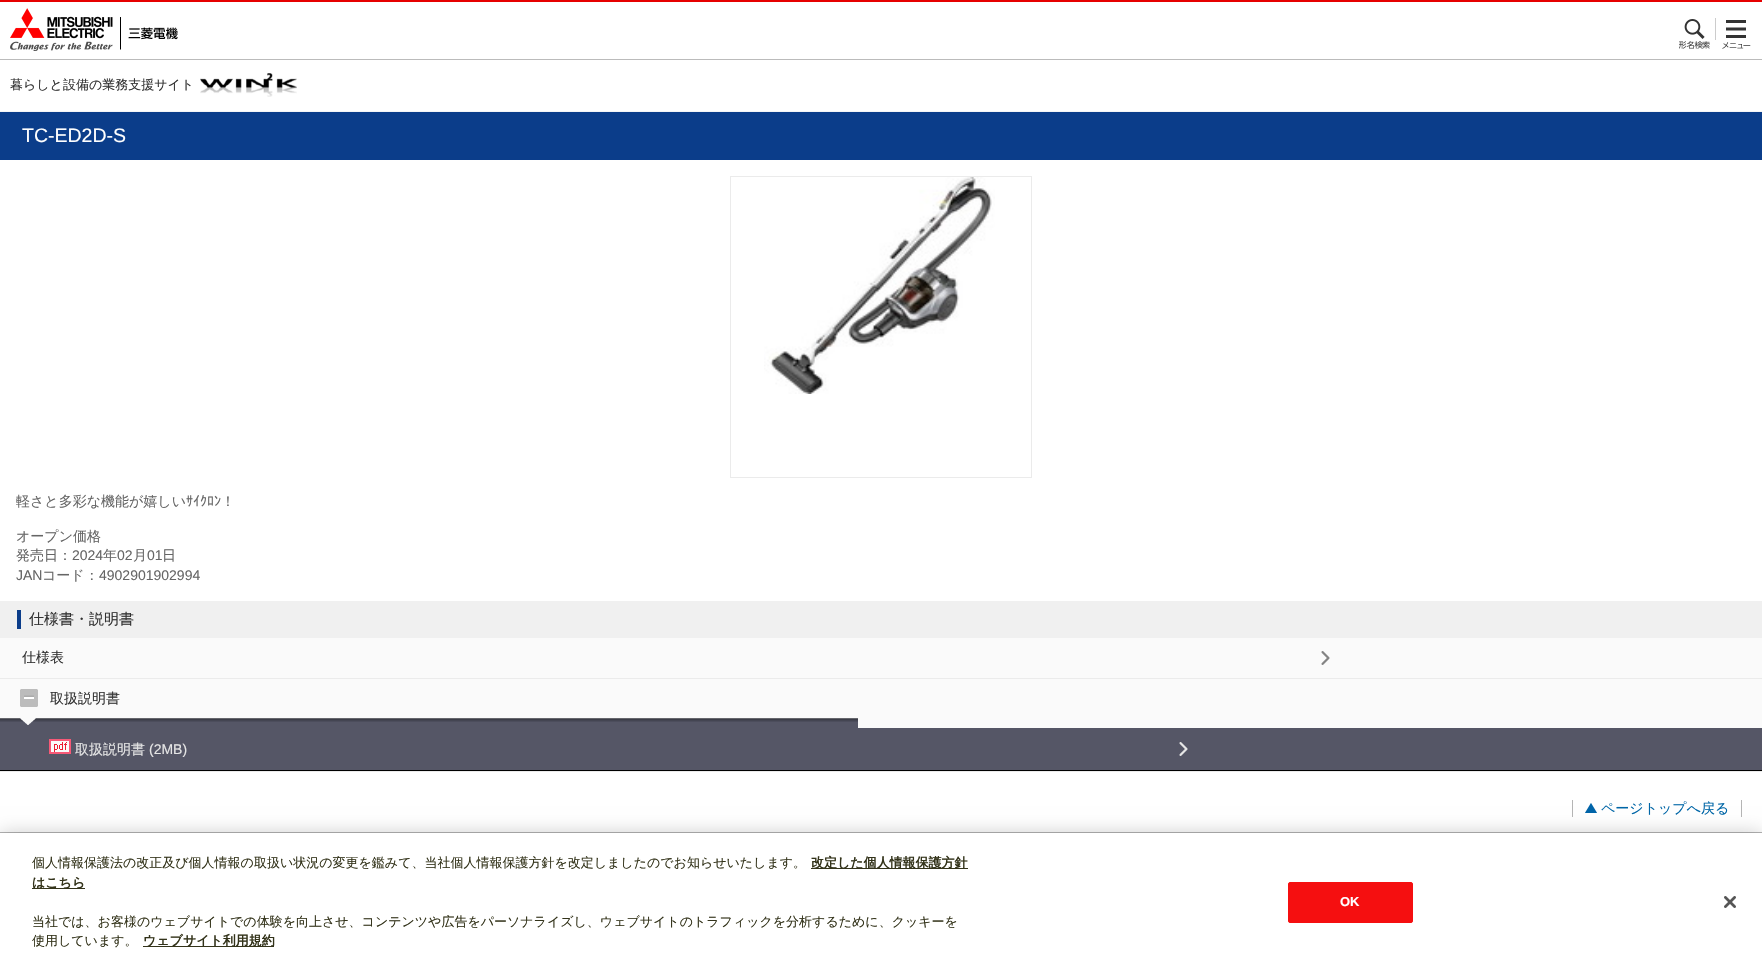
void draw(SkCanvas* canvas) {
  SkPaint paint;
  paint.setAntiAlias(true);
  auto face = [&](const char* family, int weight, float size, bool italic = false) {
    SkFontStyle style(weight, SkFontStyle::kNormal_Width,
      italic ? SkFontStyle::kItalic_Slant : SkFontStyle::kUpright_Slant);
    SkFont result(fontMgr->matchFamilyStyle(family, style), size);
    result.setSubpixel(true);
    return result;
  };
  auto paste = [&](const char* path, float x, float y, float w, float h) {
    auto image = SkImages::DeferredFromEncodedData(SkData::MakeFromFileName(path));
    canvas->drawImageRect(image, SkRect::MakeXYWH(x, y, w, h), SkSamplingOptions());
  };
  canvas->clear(0xffffffff);
  paint.setColor(0xffe60000);
  canvas->drawRect(SkRect::MakeXYWH(0, 0, 1762, 2), paint);
  paint.setColor(0xffbbbbbb);
  canvas->drawRect(SkRect::MakeXYWH(0, 59, 1762, 1), paint);
  paste("img/1.png", 10, 8, 168, 43);
  paste("img/2.png", 1679, 18, 37, 31);
  paste("img/3.png", 1722, 20, 29, 29);
  paint.setColor(0xfff5f5f5);
  canvas->drawRect(SkRect::MakeXYWH(0, 111, 1762, 1), paint);
  paste("img/4.png", 200, 73, 97, 24);
  paint.setColor(0xff0b3d8a);
  canvas->drawRect(SkRect::MakeXYWH(0, 112, 1762, 48), paint);
  paint.setStroke(true);
  paint.setStrokeWidth(1);
  paint.setColor(0xffebebeb);
  canvas->drawRect(SkRect::MakeXYWH(730.5f, 176.5f, 301, 301), paint);
  paste("img/5.png", 764, 177, 231, 217);
  paint.setStroke(false);
  {
    const struct { float x, y, w, h; SkColor color; } items[] = {
      {0, 601, 1762, 37, 0xfff0f0f0},
      {17, 610, 4, 19, 0xff0b3d8a},
      {0, 638, 1762, 40, 0xfffafafa},
      {0, 678, 1762, 1, 0xffebebeb},
    };
    for (auto [x, y, w, h, color] : items) {
      paint.setColor(color);
      canvas->drawRect(SkRect::MakeXYWH(x, y, w, h), paint);
    }
  }
  paste("img/6.png", 1321, 651, 9, 14);
  paint.setColor(0xfffafafa);
  canvas->drawRect(SkRect::MakeXYWH(0, 679, 1762, 49), paint);
  paint.setColor(0xffebebeb);
  canvas->drawRect(SkRect::MakeXYWH(0, 771, 1762, 1), paint);
  paste("img/7.png", 20, 689, 18, 18);
  paste("img/8.png", 0, 718, 858, 10);
  paint.setColor(0xff555666);
  canvas->drawRect(SkRect::MakeXYWH(0, 728, 1762, 42), paint);
  paint.setColor(0xff000000);
  canvas->drawRect(SkRect::MakeXYWH(0, 770, 1762, 1), paint);
  paste("img/9.png", 1179, 742, 9, 14);
  paste("img/10.png", 49, 739, 22, 15);
  paste("img/11.png", 1585, 803, 12, 10);
  {
    const struct { float x, y, w, h; SkColor color; } items[] = {
      {1741, 800, 1, 17, 0xffb5b5b5},
      {1572, 800, 1, 17, 0xffb5b5b5},
      {0, 832, 1762, 1, 0xffb5b5b5},
    };
    for (auto [x, y, w, h, color] : items) {
      paint.setColor(color);
      canvas->drawRect(SkRect::MakeXYWH(x, y, w, h), paint);
    }
  }
  paint.setColor(0x33000000);
  paint.setMaskFilter(SkMaskFilter::MakeBlur(kNormal_SkBlurStyle, 9));
  canvas->drawRect(SkRect::MakeXYWH(0, 833, 1762, 141), paint);
  paint.setMaskFilter(nullptr);
  {
    const struct { float x, y, w, h; SkColor color; } items[] = {
      {0, 833, 1762, 141, 0xffffffff},
      {811, 868, 157, 1, 0xff33331a},
      {32, 888, 53, 1, 0xff33331a},
      {143, 946, 131, 1, 0xff33331a},
    };
    for (auto [x, y, w, h, color] : items) {
      paint.setColor(color);
      canvas->drawRect(SkRect::MakeXYWH(x, y, w, h), paint);
    }
  }
  paint.setColor(0xfff50f10);
  canvas->drawRoundRect(SkRect::MakeXYWH(1288.5f, 882.5f, 124, 40), 1.5f, 1.5f, paint);
  paint.setStroke(true);
  canvas->drawRoundRect(SkRect::MakeXYWH(1288.5f, 882.5f, 124, 40), 1.5f, 1.5f, paint);
  paste("img/12.png", 1724, 896, 12, 12);
  auto f0 = face("WenQuanYi Zen Hei", 500, 13);
  paint.setStroke(false);
  paint.setColor(0xff333333);
  canvas->drawString("暮らしと設備の業務支援サイト", 10, 89, f0, paint);
  auto f1 = face("Liberation Sans", 400, 19.5f);
  paint.setColor(0xffffffff);
  canvas->drawString("TC-ED2D-S", 22, 142, f1, paint);
  auto f2 = face("WenQuanYi Zen Hei", 500, 14);
  paint.setColor(0xff666666);
  canvas->drawString("軽さと多彩な機能が嬉しい", 16, 506, f2, paint);
  auto f3 = face("IPAPGothic", 400, 14);
  canvas->drawString("ｻｲｸﾛﾝ", 186, 506, f3, paint);
  {
    const struct { const char* s; float x, y; } items[] = {
      {"！", 221, 506},
      {"オープン価格", 16, 541},
      {"発売日：", 16, 560},
    };
    for (auto [s, x, y] : items) {
      canvas->drawString(s, x, y, f2, paint);
    }
  }
  auto f4 = face("Liberation Sans", 400, 14);
  canvas->drawString("2024", 72, 560, f4, paint);
  canvas->drawString("年", 103, 560, f2, paint);
  canvas->drawString("02", 117, 560, f4, paint);
  canvas->drawString("月", 133, 560, f2, paint);
  canvas->drawString("01", 147, 560, f4, paint);
  canvas->drawString("日", 162, 560, f2, paint);
  canvas->drawString("JAN", 16, 580, f4, paint);
  canvas->drawString("コード：", 42, 580, f2, paint);
  canvas->drawString("4902901902994", 99, 580, f4, paint);
  auto f5 = face("WenQuanYi Zen Hei", 500, 15);
  paint.setColor(0xff333333);
  canvas->drawString("仕様書・説明書", 29, 624, f5, paint);
  canvas->drawString("仕様表", 22, 662, f2, paint);
  canvas->drawString("取扱説明書", 50, 703, f2, paint);
  paint.setColor(0xffe5e5e5);
  canvas->drawString("取扱説明書", 75, 754, f2, paint);
  canvas->drawString("(2MB)", 149, 754, f4, paint);
  paint.setColor(0xff0066a7);
  canvas->drawString("ページトップへ戻る", 1601, 813, f2, paint);
  paint.setColor(0xff33331a);
  canvas->drawString("個人情報保護法の改正及び個人情報の取扱い状況の変更を鑑みて、当社個人情報保護方針を改定しましたのでお知らせいたします。", 32, 867, f0, paint);
  auto f6 = face("WenQuanYi Zen Hei", 700, 13);
  canvas->drawString("改定した個人情報保護方針", 811, 867, f6, paint);
  canvas->drawString("はこちら", 32, 887, f6, paint);
  canvas->drawString("当社では、お客様のウェブサイトでの体験を向上させ、コンテンツや広告をパーソナライズし、ウェブサイトのトラフィックを分析するために、クッキーを", 32, 926, f0, paint);
  canvas->drawString("使用しています。", 32, 945, f0, paint);
  canvas->drawString("ウェブサイト利用規約", 143, 945, f6, paint);
  auto f7 = face("Liberation Sans", 700, 13);
  paint.setColor(0xffffffff);
  canvas->drawString("OK", 1340, 906, f7, paint);
}
